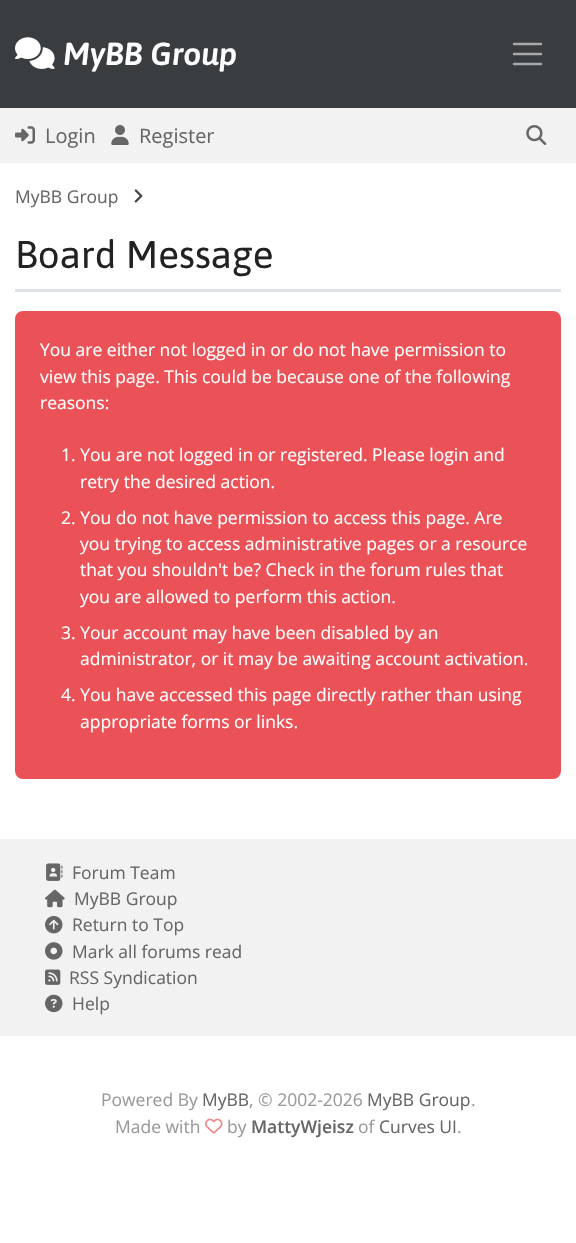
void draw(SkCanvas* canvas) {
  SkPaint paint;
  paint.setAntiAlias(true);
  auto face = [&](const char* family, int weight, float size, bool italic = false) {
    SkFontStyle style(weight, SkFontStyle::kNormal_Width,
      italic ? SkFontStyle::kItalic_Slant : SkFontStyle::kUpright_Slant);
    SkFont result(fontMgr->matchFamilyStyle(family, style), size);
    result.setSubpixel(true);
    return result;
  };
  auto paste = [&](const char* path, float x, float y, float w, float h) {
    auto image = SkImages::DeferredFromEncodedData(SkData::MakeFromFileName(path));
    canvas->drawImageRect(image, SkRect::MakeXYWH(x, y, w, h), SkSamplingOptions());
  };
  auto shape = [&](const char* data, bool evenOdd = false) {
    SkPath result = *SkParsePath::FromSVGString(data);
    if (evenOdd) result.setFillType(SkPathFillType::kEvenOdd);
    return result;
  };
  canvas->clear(0xffffffff);
  paint.setColor(0xff393d3f);
  canvas->drawRect(SkRect::MakeXYWH(0, 0, 576, 108), paint);
  paste("img/1.png", 15, 37, 40, 32);
  paint.setStroke(true);
  paint.setStrokeWidth(2.5f);
  paint.setStrokeCap(SkPaint::kRound_Cap);
  paint.setColor(0xffa6a8a9);
  canvas->drawPath(shape("M514 44H541M514 54H541M514 64H541"), paint);
  paint.setStroke(false);
  paint.setColor(0xfff2f2f2);
  canvas->drawRect(SkRect::MakeXYWH(0, 108, 576, 55), paint);
  paste("img/2.png", 15, 126, 20, 18);
  paste("img/3.png", 111, 125, 18, 20);
  paste("img/4.png", 526, 125, 21, 20);
  paste("img/5.png", 134, 189, 9, 14);
  paint.setColor(0xffdee2e6);
  canvas->drawRect(SkRect::MakeXYWH(15, 289, 546, 3), paint);
  paint.setColor(0xffeb5257);
  canvas->drawRoundRect(SkRect::MakeXYWH(15, 311, 546, 468), 8, 8, paint);
  paint.setColor(0xfff2f2f2);
  canvas->drawRect(SkRect::MakeXYWH(0, 839, 576, 197), paint);
  paste("img/6.png", 46, 863, 17, 18);
  paste("img/7.png", 45, 889, 20, 19);
  paste("img/8.png", 45, 916, 18, 18);
  paste("img/9.png", 45, 942, 18, 18);
  paste("img/10.png", 45, 969, 16, 16);
  paste("img/11.png", 45, 994, 18, 19);
  paste("img/12.png", 205, 1118, 18, 16);
  auto f0 = face("Asap", 600, 31.75f, true);
  paint.setColor(0xffffffff);
  canvas->drawString("MyBB Group", 63, 65, f0, paint);
  auto f1 = face("Open Sans", 400, 20);
  paint.setColor(0xff666666);
  canvas->drawString("Login", 45, 143, f1, paint);
  canvas->drawString("Register", 139, 143, f1, paint);
  auto f2 = face("Open Sans", 400, 17.5f);
  canvas->drawString("MyBB Group", 15, 203, f2, paint);
  auto f3 = face("Asap", 400, 38.5f);
  paint.setColor(0xff222222);
  canvas->drawString("Board Message", 15, 268, f3, paint);
  paint.setColor(0xffffffff);
  {
    const struct { const char* s; float x, y; } items[] = {
      {"You are either not logged in or do not have permission to", 40, 356},
      {"view this page. This could be because one of the following", 40, 383},
      {"reasons:", 40, 409},
      {"1. You are not logged in or registered. Please login and", 61, 461},
      {"retry the desired action.", 80, 488},
      {"2. You do not have permission to access this page. Are", 61, 524},
      {"you trying to access administrative pages or a resource", 80, 550},
      {"that you shouldn't be? Check in the forum rules that", 80, 576},
      {"you are allowed to perform this action.", 80, 603},
      {"3. Your account may have been disabled by an", 61, 639},
      {"administrator, or it may be awaiting account activation.", 80, 665},
      {"4. You have accessed this page directly rather than using", 61, 701},
      {"appropriate forms or links.", 80, 728},
    };
    for (auto [s, x, y] : items) {
      canvas->drawString(s, x, y, f2, paint);
    }
  }
  paint.setColor(0xff666666);
  {
    const struct { const char* s; float x, y; } items[] = {
      {"Forum Team", 72, 879},
      {"MyBB Group", 74, 905},
      {"Return to Top", 72, 931},
      {"Mark all forums read", 72, 958},
      {"RSS Syndication", 69, 984},
      {"Help", 72, 1010},
    };
    for (auto [s, x, y] : items) {
      canvas->drawString(s, x, y, f2, paint);
    }
  }
  paint.setColor(0xff999999);
  canvas->drawString("Powered By", 101, 1106, f2, paint);
  paint.setColor(0xff666666);
  canvas->drawString("MyBB", 202, 1106, f2, paint);
  paint.setColor(0xff999999);
  canvas->drawString(", © 2002-2026", 249, 1106, f2, paint);
  paint.setColor(0xff666666);
  canvas->drawString("MyBB Group", 367, 1106, f2, paint);
  paint.setColor(0xff999999);
  {
    const struct { const char* s; float x, y; } items[] = {
      {".", 471, 1106},
      {"Made with", 115, 1133},
      {"by", 227, 1133},
    };
    for (auto [s, x, y] : items) {
      canvas->drawString(s, x, y, f2, paint);
    }
  }
  auto f4 = face("Open Sans", 600, 17.5f);
  paint.setColor(0xff666666);
  canvas->drawString("MattyWjeisz", 251, 1133, f4, paint);
  paint.setColor(0xff999999);
  canvas->drawString("of", 358, 1133, f2, paint);
  paint.setColor(0xff666666);
  canvas->drawString("Curves UI", 379, 1133, f2, paint);
  paint.setColor(0xff999999);
  canvas->drawString(".", 457, 1133, f2, paint);
}
